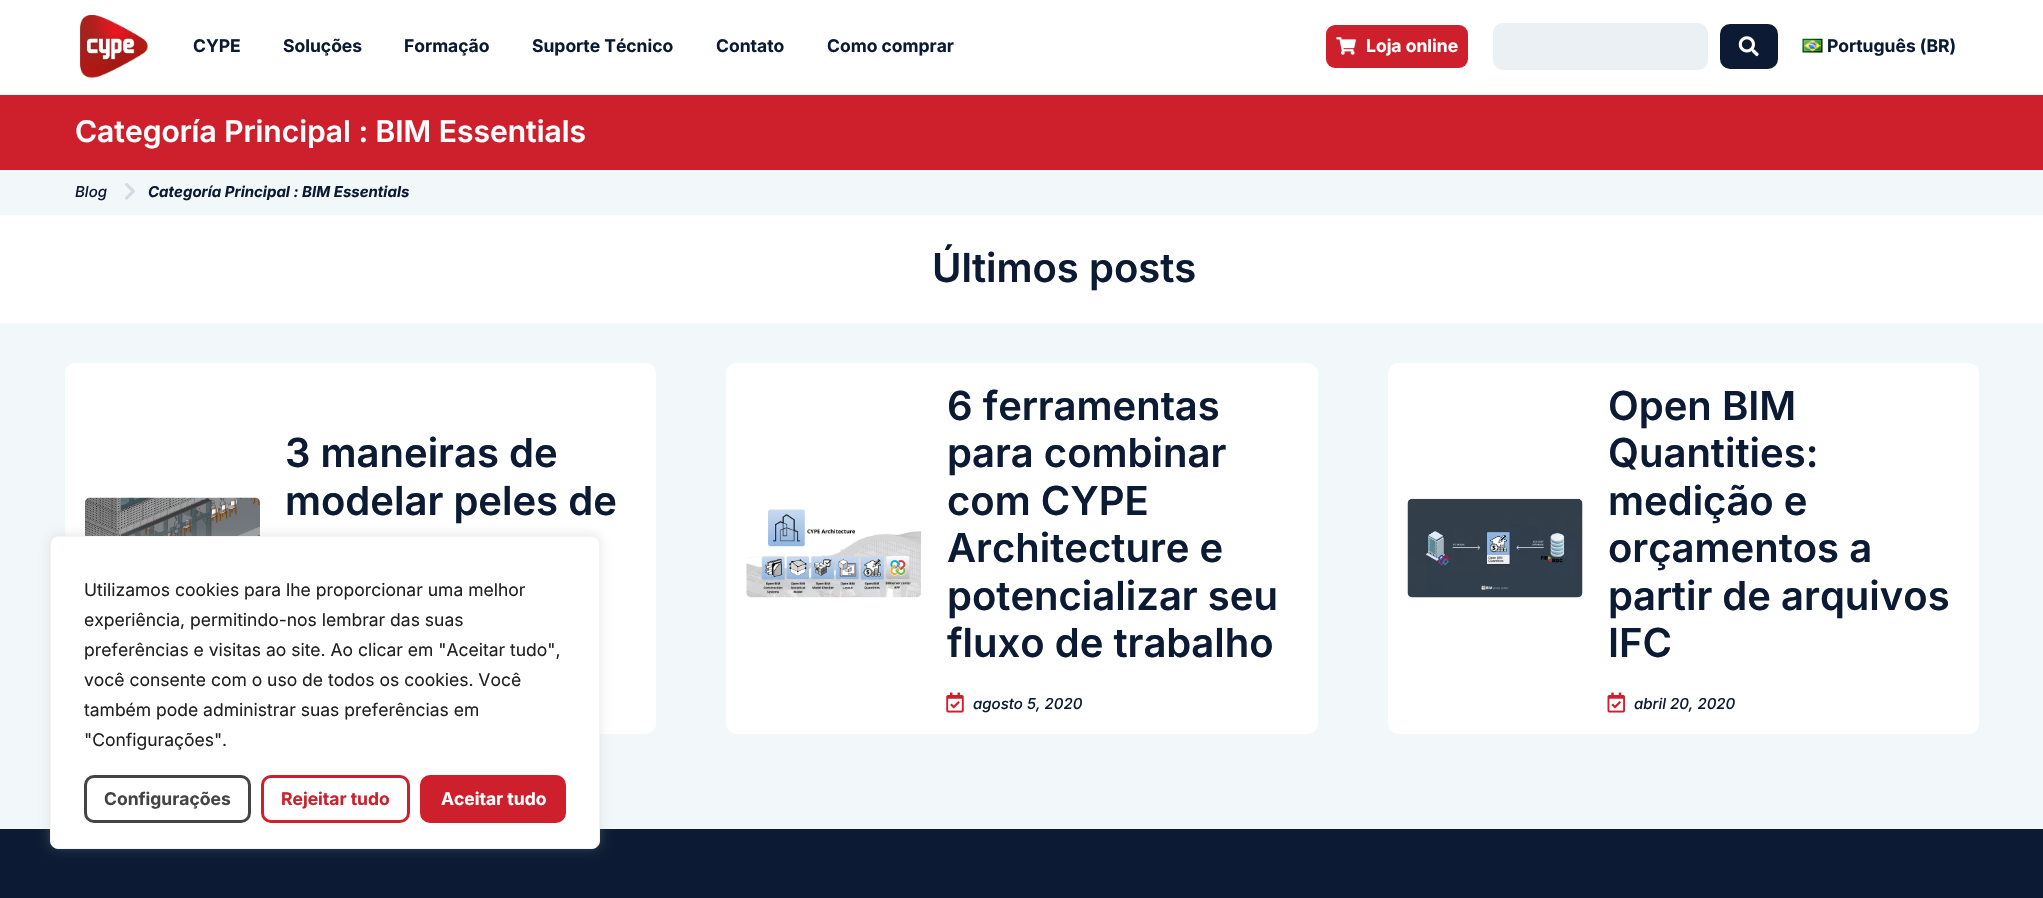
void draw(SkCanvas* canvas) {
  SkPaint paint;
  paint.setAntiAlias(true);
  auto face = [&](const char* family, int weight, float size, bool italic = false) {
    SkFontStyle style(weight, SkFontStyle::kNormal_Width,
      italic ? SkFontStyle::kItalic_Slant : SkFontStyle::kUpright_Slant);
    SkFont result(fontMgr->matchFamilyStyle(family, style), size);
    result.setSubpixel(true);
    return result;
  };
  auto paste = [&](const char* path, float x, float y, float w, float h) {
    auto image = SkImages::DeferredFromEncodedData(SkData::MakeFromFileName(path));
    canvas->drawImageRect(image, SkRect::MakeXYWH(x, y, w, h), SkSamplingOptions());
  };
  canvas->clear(0xffffffff);
  paint.setColor(0xfff2f7f9);
  canvas->drawRect(SkRect::MakeXYWH(0, 93, 2043, 2), paint);
  paste("img/1.png", 80, 15, 68, 63);
  paint.setColor(0xffcd202c);
  canvas->drawRoundRect(SkRect::MakeXYWH(1326, 25, 142, 43), 9, 9, paint);
  paste("img/2.png", 1336, 37, 20, 18);
  paint.setColor(0xffeaf0f4);
  canvas->drawRoundRect(SkRect::MakeXYWH(1493, 23, 215, 47), 10, 10, paint);
  paint.setColor(0xff0c1b33);
  canvas->drawRoundRect(SkRect::MakeXYWH(1720, 24, 58, 45), 10, 10, paint);
  paste("img/3.png", 1738, 36, 21, 21);
  paste("img/4.png", 1802, 38, 21, 15);
  paint.setColor(0xffcd202c);
  canvas->drawRect(SkRect::MakeXYWH(0, 95, 2043, 75), paint);
  paint.setColor(0xfff2f7f9);
  canvas->drawRect(SkRect::MakeXYWH(0, 170, 2043, 45), paint);
  paste("img/5.png", 125, 182, 10, 18);
  canvas->drawRect(SkRect::MakeXYWH(0, 323, 2043, 506), paint);
  paint.setColor(0xffffffff);
  canvas->drawRoundRect(SkRect::MakeXYWH(65, 363, 591, 371), 10, 10, paint);
  paste("img/6.png", 85, 497, 175, 39);
  canvas->drawRoundRect(SkRect::MakeXYWH(726, 363, 592, 371), 10, 10, paint);
  paste("img/7.png", 746, 509, 175, 89);
  paste("img/8.png", 946, 692, 18, 21);
  canvas->drawRoundRect(SkRect::MakeXYWH(1388, 363, 591, 371), 10, 10, paint);
  paste("img/9.png", 1407, 498, 176, 100);
  paste("img/10.png", 1607, 692, 18, 21);
  paint.setColor(0xff0c1b33);
  canvas->drawRect(SkRect::MakeXYWH(0, 829, 2043, 69), paint);
  paint.setColor(0x4dacabab);
  paint.setMaskFilter(SkMaskFilter::MakeBlur(kNormal_SkBlurStyle, 6));
  canvas->drawRoundRect(SkRect::MakeXYWH(50, 535, 550, 313), 8, 8, paint);
  paint.setMaskFilter(nullptr);
  paint.setColor(0xffffffff);
  canvas->drawRoundRect(SkRect::MakeXYWH(50.5f, 536.5f, 549, 312), 7.5f, 7.5f, paint);
  paint.setStroke(true);
  paint.setStrokeWidth(1);
  paint.setColor(0xfff4f4f4);
  canvas->drawRoundRect(SkRect::MakeXYWH(50.5f, 536.5f, 549, 312), 7.5f, 7.5f, paint);
  paint.setStrokeWidth(3);
  paint.setColor(0xff444444);
  canvas->drawRoundRect(SkRect::MakeXYWH(85.5f, 776.5f, 164, 45), 8.5f, 8.5f, paint);
  paint.setColor(0xffcd202c);
  canvas->drawRoundRect(SkRect::MakeXYWH(262.5f, 776.5f, 146, 45), 8.5f, 8.5f, paint);
  paint.setStroke(false);
  canvas->drawRoundRect(SkRect::MakeXYWH(421.5f, 776.5f, 143, 45), 8.5f, 8.5f, paint);
  paint.setStroke(true);
  canvas->drawRoundRect(SkRect::MakeXYWH(421.5f, 776.5f, 143, 45), 8.5f, 8.5f, paint);
  auto f0 = face("Inter", 700, 17.5f);
  paint.setStroke(false);
  paint.setColor(0xff0c1b33);
  {
    const struct { const char* s; float x, y; } items[] = {
      {"CYPE", 193, 52},
      {"Soluções", 283, 52},
      {"Formação", 404, 52},
      {"Suporte Técnico", 532, 52},
      {"Contato", 716, 52},
      {"Como comprar", 827, 52},
    };
    for (auto [s, x, y] : items) {
      canvas->drawString(s, x, y, f0, paint);
    }
  }
  paint.setColor(0xffffffff);
  canvas->drawString("Loja online", 1366, 52, f0, paint);
  paint.setColor(0xff0c1b33);
  canvas->drawString("Português (BR)", 1827, 52, f0, paint);
  auto f1 = face("Inter", 600, 30);
  paint.setColor(0xffffffff);
  canvas->drawString("Categoría Principal : BIM Essentials", 75, 142, f1, paint);
  auto f2 = face("Inter", 500, 15, true);
  paint.setColor(0xff0c1b33);
  canvas->drawString("Blog", 75, 197, f2, paint);
  auto f3 = face("Inter", 700, 15, true);
  canvas->drawString("Categoría Principal : BIM Essentials", 148, 197, f3, paint);
  auto f4 = face("Inter", 600, 40);
  {
    const struct { const char* s; float x, y; } items[] = {
      {"Últimos posts", 932, 282},
      {"3 maneiras de", 285, 467},
      {"modelar peles de", 285, 515},
      {"6 ferramentas", 947, 420},
      {"para combinar", 947, 467},
      {"com CYPE", 947, 515},
      {"Architecture e", 947, 562},
      {"potencializar seu", 947, 610},
      {"fluxo de trabalho", 947, 657},
    };
    for (auto [s, x, y] : items) {
      canvas->drawString(s, x, y, f4, paint);
    }
  }
  canvas->drawString("agosto 5, 2020", 973, 709, f2, paint);
  {
    const struct { const char* s; float x, y; } items[] = {
      {"Open BIM", 1608, 420},
      {"Quantities:", 1608, 467},
      {"medição e", 1608, 515},
      {"orçamentos a", 1608, 562},
      {"partir de arquivos", 1608, 610},
      {"IFC", 1608, 657},
    };
    for (auto [s, x, y] : items) {
      canvas->drawString(s, x, y, f4, paint);
    }
  }
  canvas->drawString("abril 20, 2020", 1634, 709, f2, paint);
  auto f5 = face("Inter", 400, 17.5f);
  paint.setColor(0xff212121);
  {
    const struct { const char* s; float x, y; } items[] = {
      {"Utilizamos cookies para lhe proporcionar uma melhor", 84, 596},
      {"experiência, permitindo-nos lembrar das suas", 84, 626},
      {"preferências e visitas ao site. Ao clicar em \"Aceitar tudo\",", 84, 656},
      {"você consente com o uso de todos os cookies. Você", 84, 686},
      {"também pode administrar suas preferências em", 84, 716},
      {"\"Configurações\".", 84, 746},
    };
    for (auto [s, x, y] : items) {
      canvas->drawString(s, x, y, f5, paint);
    }
  }
  paint.setColor(0xff444444);
  canvas->drawString("Configurações", 104, 805, f0, paint);
  paint.setColor(0xffcd202c);
  canvas->drawString("Rejeitar tudo", 281, 805, f0, paint);
  paint.setColor(0xffffffff);
  canvas->drawString("Aceitar tudo", 441, 805, f0, paint);
}
